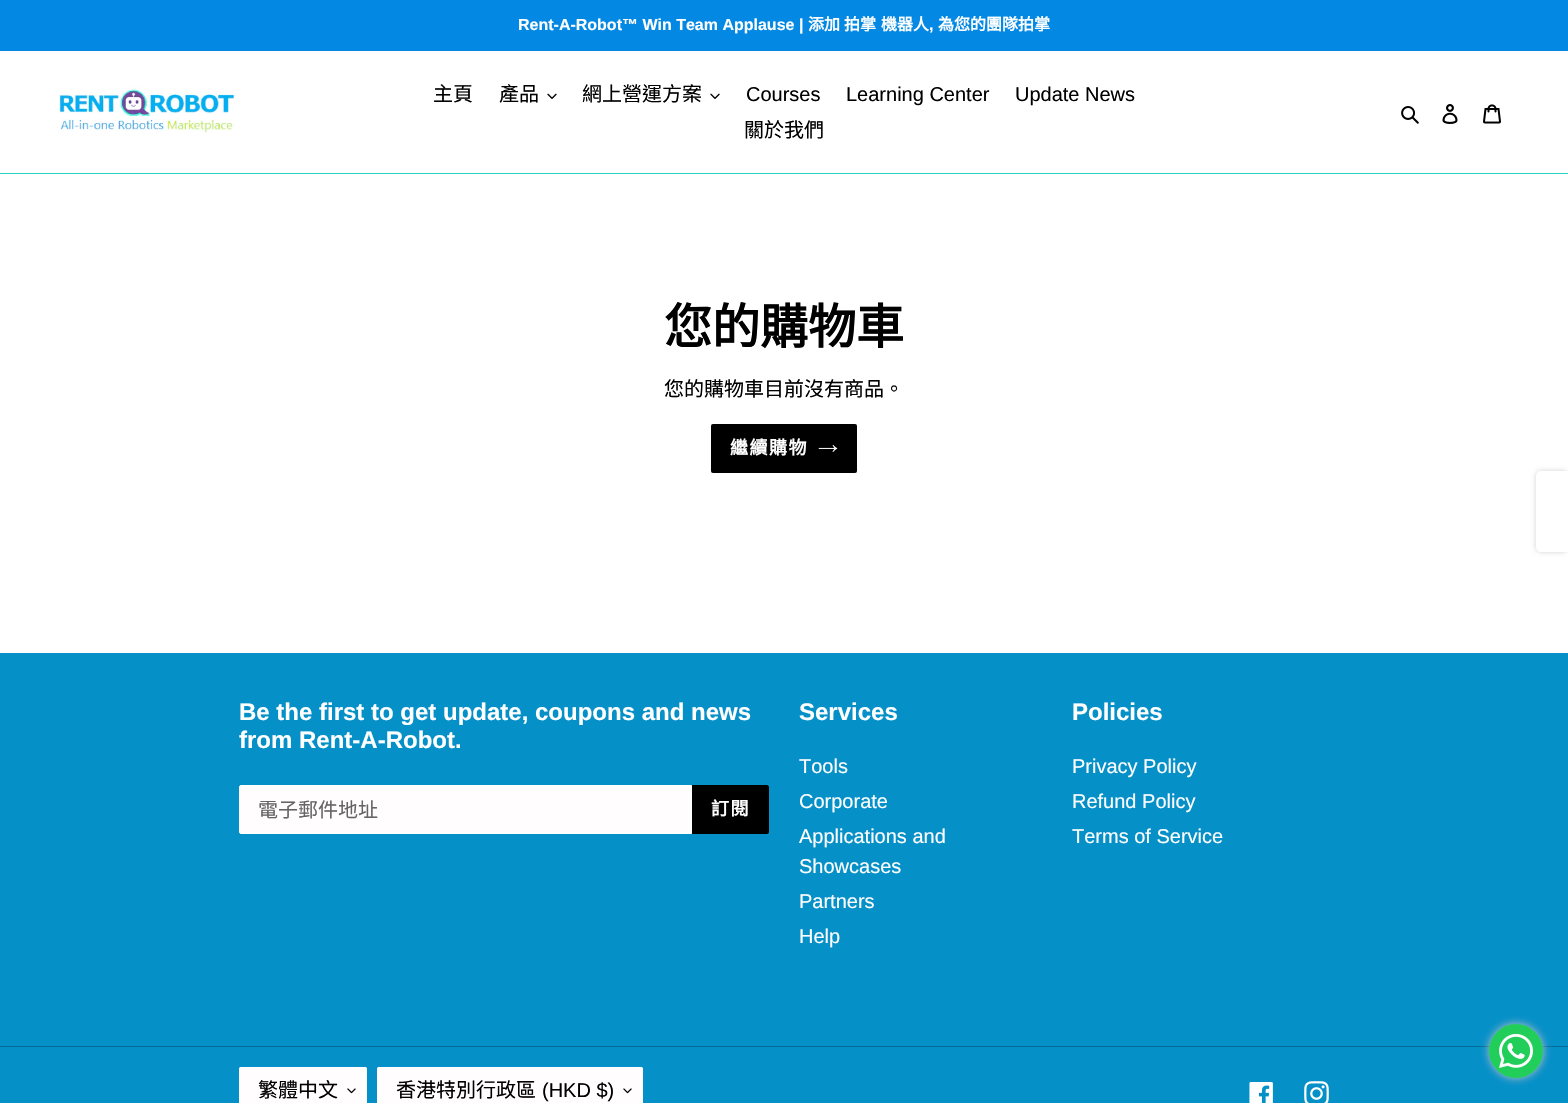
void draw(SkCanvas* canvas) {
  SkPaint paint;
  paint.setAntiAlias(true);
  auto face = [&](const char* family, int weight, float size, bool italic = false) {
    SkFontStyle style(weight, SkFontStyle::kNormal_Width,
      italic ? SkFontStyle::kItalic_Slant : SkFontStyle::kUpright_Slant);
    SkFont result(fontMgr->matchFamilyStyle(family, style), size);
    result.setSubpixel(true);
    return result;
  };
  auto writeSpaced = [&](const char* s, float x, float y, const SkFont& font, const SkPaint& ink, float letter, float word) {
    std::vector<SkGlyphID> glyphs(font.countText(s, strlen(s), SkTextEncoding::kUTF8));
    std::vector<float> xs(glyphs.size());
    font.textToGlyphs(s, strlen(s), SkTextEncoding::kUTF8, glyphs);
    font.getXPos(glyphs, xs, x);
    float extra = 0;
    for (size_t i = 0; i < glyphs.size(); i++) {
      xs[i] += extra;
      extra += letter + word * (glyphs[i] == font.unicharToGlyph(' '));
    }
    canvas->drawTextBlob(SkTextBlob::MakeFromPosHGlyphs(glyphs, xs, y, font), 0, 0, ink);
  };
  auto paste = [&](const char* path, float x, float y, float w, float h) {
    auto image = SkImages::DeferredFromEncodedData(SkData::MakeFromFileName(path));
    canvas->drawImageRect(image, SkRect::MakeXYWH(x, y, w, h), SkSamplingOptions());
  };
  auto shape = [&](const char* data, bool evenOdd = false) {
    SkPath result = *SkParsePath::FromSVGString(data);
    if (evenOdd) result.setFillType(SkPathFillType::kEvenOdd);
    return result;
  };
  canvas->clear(0xffffffff);
  paint.setColor(0xff0388e3);
  canvas->drawRect(SkRect::MakeXYWH(0, 0, 1568, 51), paint);
  paint.setColor(0xff26d3bf);
  canvas->drawRect(SkRect::MakeXYWH(0, 173, 1568, 1), paint);
  paste("img/1.png", 55, 85, 181, 49);
  paste("img/2.png", 547, 93, 10, 6);
  paste("img/2.png", 710, 93, 10, 6);
  paste("img/3.png", 1401, 106, 18, 18);
  paste("img/4.png", 1442, 104, 16, 20);
  paste("img/5.png", 1483, 104, 18, 20);
  paint.setColor(0xff000000);
  canvas->drawRoundRect(SkRect::MakeXYWH(711, 424, 146, 49), 2, 2, paint);
  paste("img/6.png", 818, 444, 20, 8);
  paint.setColor(0xff0590c8);
  canvas->drawRect(SkRect::MakeXYWH(0, 653, 1568, 450), paint);
  paint.setColor(0xfffffdfd);
  canvas->drawPath(shape("M241 785.5H691.5V833.5H241C240 833.5 239.5 833 239.5 832V787C239.5 786 240 785.5 241 785.5Z"), paint);
  paint.setStroke(true);
  paint.setStrokeWidth(1);
  paint.setColor(0xffffffff);
  canvas->drawPath(shape("M241 785.5H691.5V833.5H241C240 833.5 239.5 833 239.5 832V787C239.5 786 240 785.5 241 785.5Z"), paint);
  paint.setStroke(false);
  paint.setColor(0xff000000);
  canvas->drawPath(shape("M692 785H767C768 785 769 786 769 787V832C769 833 768 834 767 834H692Z"), paint);
  paint.setColor(0xff046c96);
  canvas->drawRect(SkRect::MakeXYWH(0, 1046, 1568, 1), paint);
  paint.setColor(0xfffffdfd);
  canvas->drawRoundRect(SkRect::MakeXYWH(239, 1067, 128, 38), 2, 2, paint);
  paste("img/7.png", 347, 1088, 9, 6);
  paint.setStroke(true);
  paint.setColor(0xffffffff);
  canvas->drawRoundRect(SkRect::MakeXYWH(239.5f, 1067.5f, 127, 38), 1.5f, 1.5f, paint);
  paint.setStroke(false);
  paint.setColor(0xfffffdfd);
  canvas->drawRoundRect(SkRect::MakeXYWH(377, 1067, 266, 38), 2, 2, paint);
  paste("img/7.png", 623, 1088, 9, 6);
  paint.setStroke(true);
  paint.setColor(0xffffffff);
  canvas->drawRoundRect(SkRect::MakeXYWH(377.5f, 1067.5f, 265, 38), 1.5f, 1.5f, paint);
  paste("img/8.png", 1249, 1082, 24, 21);
  paste("img/9.png", 1304, 1081, 25, 22);
  paint.setStroke(false);
  paint.setColor(0xffd3d3d3);
  paint.setMaskFilter(SkMaskFilter::MakeBlur(kNormal_SkBlurStyle, 2.5f));
  canvas->drawRoundRect(SkRect::MakeXYWH(1536, 471, 32, 81), 5, 5, paint);
  paint.setMaskFilter(nullptr);
  paint.setColor(0xffffffff);
  canvas->drawPath(shape("M1541 471H1568V552H1541C1538 552 1536 550 1536 547V476C1536 473 1538 471 1541 471Z"), paint);
  paint.setColor(0xffc2c2c2);
  paint.setMaskFilter(SkMaskFilter::MakeBlur(kNormal_SkBlurStyle, 4));
  canvas->drawRoundRect(SkRect::MakeXYWH(1489, 1024, 54, 54), 27, 27, paint);
  paint.setMaskFilter(nullptr);
  paint.setColor(0xff22ce5a);
  canvas->drawCircle(1516, 1051, 27, paint);
  paste("img/10.png", 1499, 1034, 34, 34);
  auto f0 = face("Liberation Sans", 700, 16);
  paint.setColor(0xffffffff);
  canvas->drawString("Rent-A-Robot™ Win Team Applause |", 518, 30, f0, paint);
  auto f1 = face("Noto Sans CJK TC", 700, 16);
  {
    const struct { const char* s; float x, y; } items[] = {
      {"添加", 808, 30},
      {"拍掌", 844, 30},
      {"機器人", 881, 30},
    };
    for (auto [s, x, y] : items) {
      canvas->drawString(s, x, y, f1, paint);
    }
  }
  canvas->drawString(",", 929, 30, f0, paint);
  canvas->drawString("為您的團隊拍掌", 938, 30, f1, paint);
  auto f2 = face("Noto Sans CJK TC", 400, 20);
  paint.setColor(0xff000000);
  {
    const struct { const char* s; float x, y; } items[] = {
      {"主頁", 433, 101},
      {"產品", 499, 101},
      {"網上營運方案", 582, 101},
    };
    for (auto [s, x, y] : items) {
      canvas->drawString(s, x, y, f2, paint);
    }
  }
  auto f3 = face("Liberation Sans", 400, 20);
  {
    const struct { const char* s; float x, y; } items[] = {
      {"Courses", 746, 101},
      {"Learning Center", 846, 101},
      {"Update News", 1015, 101},
    };
    for (auto [s, x, y] : items) {
      canvas->drawString(s, x, y, f3, paint);
    }
  }
  canvas->drawString("關於我們", 744, 137, f2, paint);
  auto f4 = face("Noto Sans CJK TC", 700, 48);
  canvas->drawString("您的購物車", 664, 344, f4, paint);
  canvas->drawString("您的購物車目前沒有商品。", 664, 396, f2, paint);
  auto f5 = face("Noto Sans CJK TC", 700, 18);
  paint.setColor(0xffffffff);
  writeSpaced("繼續購物", 730, 454, f5, paint, 1.5f, 0);
  auto f6 = face("Liberation Sans", 700, 24);
  canvas->drawString("Be the first to get update, coupons and news", 239, 720, f6, paint);
  canvas->drawString("from Rent-A-Robot.", 239, 748, f6, paint);
  paint.setColor(0xff666565);
  canvas->drawString("電子郵件地址", 258, 817, f2, paint);
  paint.setColor(0xffffffff);
  writeSpaced("訂閱", 711, 815, f5, paint, 1.5f, 0);
  canvas->drawString("Services", 799, 720, f6, paint);
  {
    const struct { const char* s; float x, y; } items[] = {
      {"Tools", 799, 773},
      {"Corporate", 799, 808},
      {"Applications and", 799, 843},
      {"Showcases", 799, 873},
      {"Partners", 799, 908},
      {"Help", 799, 943},
    };
    for (auto [s, x, y] : items) {
      canvas->drawString(s, x, y, f3, paint);
    }
  }
  canvas->drawString("Policies", 1072, 720, f6, paint);
  {
    const struct { const char* s; float x, y; } items[] = {
      {"Privacy Policy", 1072, 773},
      {"Refund Policy", 1072, 808},
      {"Terms of Service", 1072, 843},
    };
    for (auto [s, x, y] : items) {
      canvas->drawString(s, x, y, f3, paint);
    }
  }
  paint.setColor(0xff000000);
  canvas->drawString("繁體中文", 258, 1097, f2, paint);
  canvas->drawString("香港特別行政區", 396, 1097, f2, paint);
  canvas->drawString("(HKD $)", 542, 1097, f3, paint);
}
